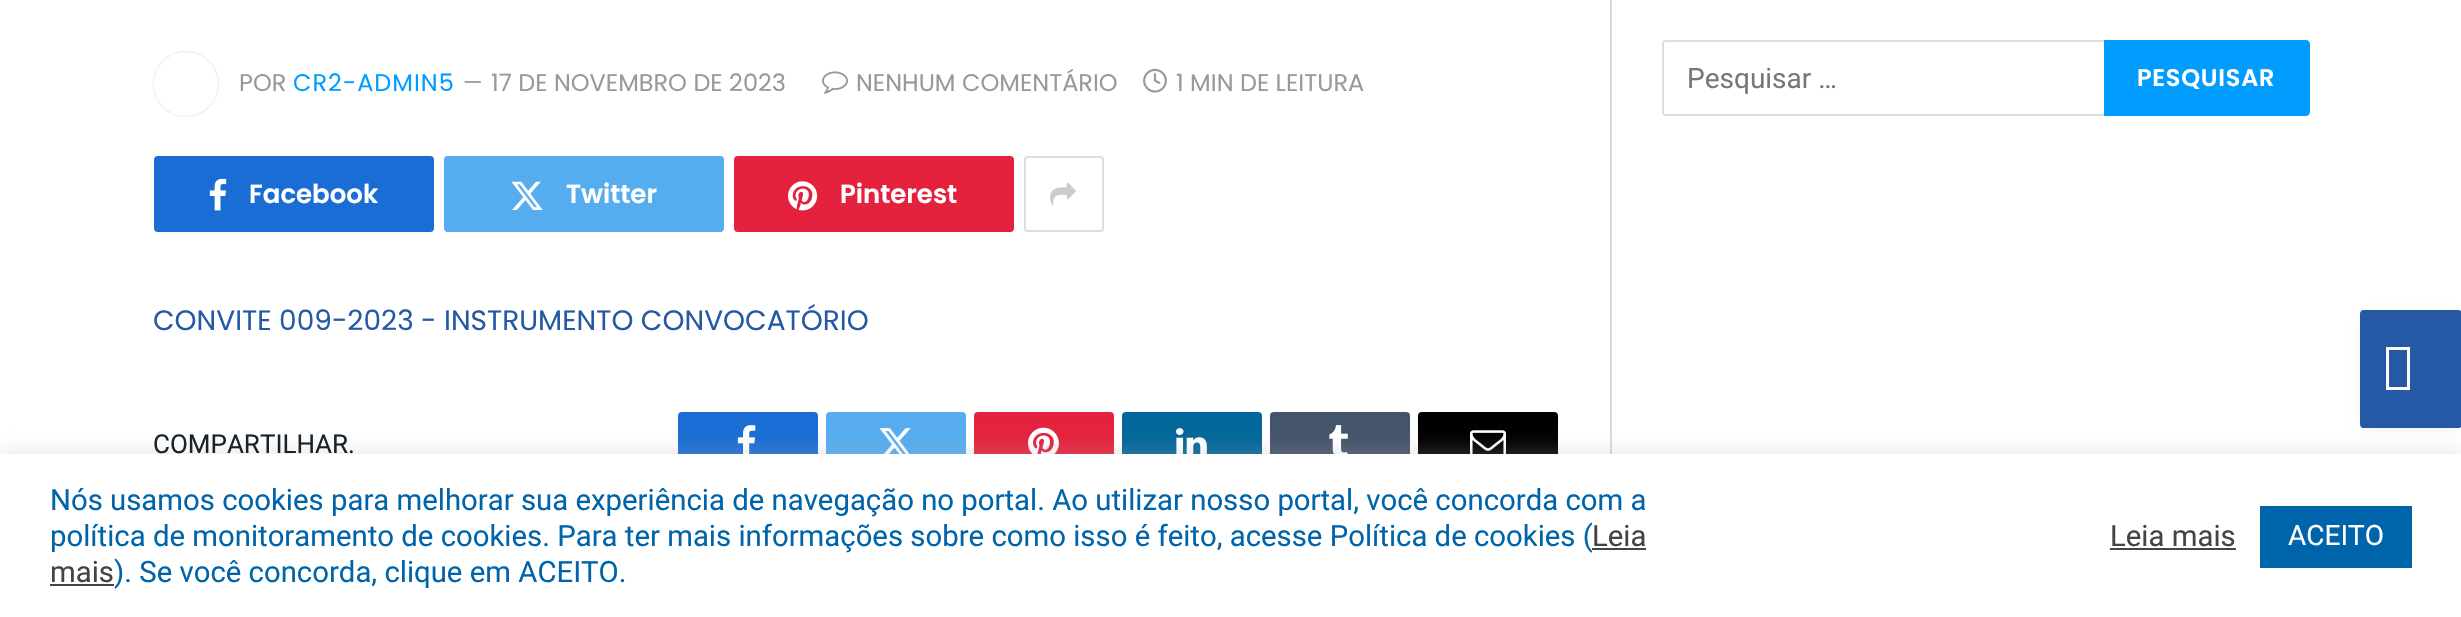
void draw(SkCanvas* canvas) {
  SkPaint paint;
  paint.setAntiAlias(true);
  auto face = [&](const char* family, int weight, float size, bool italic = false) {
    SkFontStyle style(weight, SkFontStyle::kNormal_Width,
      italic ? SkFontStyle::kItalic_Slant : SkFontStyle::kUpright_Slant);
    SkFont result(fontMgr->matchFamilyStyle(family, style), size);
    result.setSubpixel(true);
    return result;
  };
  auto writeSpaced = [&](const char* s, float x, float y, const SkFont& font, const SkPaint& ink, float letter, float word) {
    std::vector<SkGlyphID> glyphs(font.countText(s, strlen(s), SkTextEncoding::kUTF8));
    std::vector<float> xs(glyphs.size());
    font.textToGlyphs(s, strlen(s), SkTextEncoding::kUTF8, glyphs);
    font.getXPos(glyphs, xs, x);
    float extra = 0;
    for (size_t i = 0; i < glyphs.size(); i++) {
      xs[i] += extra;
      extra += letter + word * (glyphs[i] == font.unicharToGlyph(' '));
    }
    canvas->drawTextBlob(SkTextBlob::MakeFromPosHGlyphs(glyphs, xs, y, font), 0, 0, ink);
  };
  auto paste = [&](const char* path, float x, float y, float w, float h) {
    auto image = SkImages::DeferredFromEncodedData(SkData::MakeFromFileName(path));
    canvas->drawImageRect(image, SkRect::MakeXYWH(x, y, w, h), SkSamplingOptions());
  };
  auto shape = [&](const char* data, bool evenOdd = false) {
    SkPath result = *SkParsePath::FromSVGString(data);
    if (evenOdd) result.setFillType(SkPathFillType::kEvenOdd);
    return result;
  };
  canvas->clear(0xffffffff);
  canvas->save();
  canvas->clipPath(shape("M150 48H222V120H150ZM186 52C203.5 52 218 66.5 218 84C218 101.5 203.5 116 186 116C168.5 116 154 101.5 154 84C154 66.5 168.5 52 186 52Z", true), true);
  paint.setColor(0x33000000);
  paint.setMaskFilter(SkMaskFilter::MakeBlur(kNormal_SkBlurStyle, 1));
  canvas->drawRoundRect(SkRect::MakeXYWH(154, 52, 64, 64), 32, 32, paint);
  paint.setMaskFilter(nullptr);
  canvas->restore();
  paste("img/1.png", 822, 71, 26, 23);
  paste("img/2.png", 1143, 68, 24, 25);
  paint.setColor(0xff1a6dd4);
  canvas->drawRoundRect(SkRect::MakeXYWH(154, 156, 280, 76), 4, 4, paint);
  paste("img/3.png", 209, 178, 18, 33);
  paint.setColor(0xff55acef);
  canvas->drawRoundRect(SkRect::MakeXYWH(444, 156, 280, 76), 4, 4, paint);
  paste("img/4.png", 511, 181, 32, 29);
  paint.setColor(0xffe4223e);
  canvas->drawRoundRect(SkRect::MakeXYWH(734, 156, 280, 76), 4, 4, paint);
  paste("img/5.png", 788, 181, 30, 30);
  paint.setStroke(true);
  paint.setStrokeWidth(2);
  paint.setColor(0xffdddddd);
  canvas->drawRoundRect(SkRect::MakeXYWH(1025, 157, 78, 74), 3, 3, paint);
  paste("img/6.png", 1050, 182, 26, 24);
  paint.setStroke(false);
  paint.setColor(0xff1a6dd4);
  canvas->drawRoundRect(SkRect::MakeXYWH(678, 412, 140, 64), 4, 4, paint);
  paste("img/7.png", 737, 425, 19, 29);
  paint.setColor(0xff55acef);
  canvas->drawRoundRect(SkRect::MakeXYWH(826, 412, 140, 64), 4, 4, paint);
  paste("img/8.png", 879, 428, 32, 26);
  paint.setColor(0xffe4223e);
  canvas->drawRoundRect(SkRect::MakeXYWH(974, 412, 140, 64), 4, 4, paint);
  paste("img/9.png", 1028, 427, 31, 27);
  paint.setColor(0xff02669a);
  canvas->drawRoundRect(SkRect::MakeXYWH(1122, 412, 140, 64), 4, 4, paint);
  paste("img/10.png", 1176, 428, 31, 26);
  paint.setColor(0xff44546b);
  canvas->drawRoundRect(SkRect::MakeXYWH(1270, 412, 140, 64), 4, 4, paint);
  paste("img/11.png", 1329, 425, 19, 29);
  paint.setColor(0xff000000);
  canvas->drawRoundRect(SkRect::MakeXYWH(1418, 412, 140, 64), 4, 4, paint);
  paste("img/12.png", 1470, 430, 36, 24);
  paint.setColor(0xffd9d9d9);
  canvas->drawRect(SkRect::MakeXYWH(1610, 0, 2, 454), paint);
  paint.setStroke(true);
  paint.setColor(0xffdddddd);
  canvas->drawRoundRect(SkRect::MakeXYWH(1663, 41, 444, 74), 3, 3, paint);
  paint.setStroke(false);
  paint.setColor(0xff009dfe);
  canvas->drawPath(shape("M2104 40H2306C2308 40 2310 42 2310 44V112C2310 114 2308 116 2306 116H2104Z"), paint);
  paint.setColor(0x29000000);
  paint.setMaskFilter(SkMaskFilter::MakeBlur(kNormal_SkBlurStyle, 7));
  canvas->drawRect(SkRect::MakeXYWH(2368, 322, 86, 102), paint);
  paint.setMaskFilter(nullptr);
  paint.setColor(0x4dacabab);
  paint.setMaskFilter(SkMaskFilter::MakeBlur(kNormal_SkBlurStyle, 10));
  canvas->drawRect(SkRect::MakeXYWH(0, 452, 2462, 164), paint);
  paint.setMaskFilter(nullptr);
  paint.setColor(0xff2559a6);
  canvas->drawRoundRect(SkRect::MakeXYWH(2360, 310, 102, 118), 4, 4, paint);
  canvas->drawRect(SkRect::MakeXYWH(2362, 427, 98, 1), paint);
  paint.setColor(0xffffffff);
  canvas->drawPath(shape("M2386 390V347H2410V390ZM2389 387H2407V350H2389Z"), paint);
  {
    const struct { float x, y, w, h; SkColor color; } items[] = {
      {0, 454, 2461, 163, 0xffffffff},
      {1592, 548, 54, 2, 0xff444444},
      {50, 584, 64, 2, 0xff444444},
      {2110, 548, 126, 2, 0xff444444},
      {2260, 506, 152, 62, 0xff0064ab},
    };
    for (auto [x, y, w, h, color] : items) {
      paint.setColor(color);
      canvas->drawRect(SkRect::MakeXYWH(x, y, w, h), paint);
    }
  }
  auto f0 = face("Poppins", 400, 24);
  paint.setColor(0xff999999);
  canvas->drawString("POR", 239, 91, f0, paint);
  paint.setColor(0xff009dfe);
  writeSpaced("CR2-ADMIN5", 293, 91, f0, paint, 1, 0);
  auto f1 = face("Poppins", 400, 22);
  paint.setColor(0xff999999);
  canvas->drawString("—", 463, 90, f1, paint);
  {
    const struct { const char* s; float x, y; } items[] = {
      {"17 DE NOVEMBRO DE 2023", 491, 91},
      {"NENHUM COMENTÁRIO", 856, 91},
      {"1 MIN DE LEITURA", 1176, 91},
    };
    for (auto [s, x, y] : items) {
      canvas->drawString(s, x, y, f0, paint);
    }
  }
  auto f2 = face("Poppins", 600, 26);
  paint.setColor(0xffffffff);
  {
    const struct { const char* s; float x, y; } items[] = {
      {"Facebook", 249, 203},
      {"Twitter", 566, 203},
      {"Pinterest", 840, 203},
    };
    for (auto [s, x, y] : items) {
      canvas->drawString(s, x, y, f2, paint);
    }
  }
  auto f3 = face("Poppins", 400, 28);
  paint.setColor(0xff2559a6);
  canvas->drawString("CONVITE 009-2023 - INSTRUMENTO CONVOCATÓRIO", 153, 330, f3, paint);
  auto f4 = face("Roboto", 400, 26);
  paint.setColor(0xff19232d);
  canvas->drawString("COMPARTILHAR.", 153, 453, f4, paint);
  auto f5 = face("Roboto", 400, 28);
  paint.setColor(0xff777777);
  canvas->drawString("Pesquisar …", 1687, 88, f5, paint);
  auto f6 = face("Poppins", 600, 24);
  paint.setColor(0xffffffff);
  writeSpaced("PESQUISAR", 2137, 86, f6, paint, 0.75f, 0);
  auto f7 = face("Roboto", 400, 29.33f);
  paint.setColor(0xff0064ab);
  canvas->drawString("Nós usamos cookies para melhorar sua experiência de navegação no portal. Ao utilizar nosso portal, você concorda com a", 50, 510, f7, paint);
  canvas->drawString("política de monitoramento de cookies. Para ter mais informações sobre como isso é feito, acesse Política de cookies (", 50, 546, f7, paint);
  paint.setColor(0xff444444);
  canvas->drawString("Leia", 1592, 546, f7, paint);
  canvas->drawString("mais", 50, 582, f7, paint);
  paint.setColor(0xff0064ab);
  canvas->drawString("). Se você concorda, clique em ACEITO.", 114, 582, f7, paint);
  paint.setColor(0xff444444);
  canvas->drawString("Leia mais", 2110, 546, f7, paint);
  paint.setColor(0xffffffff);
  canvas->drawString("ACEITO", 2288, 545, f5, paint);
}
